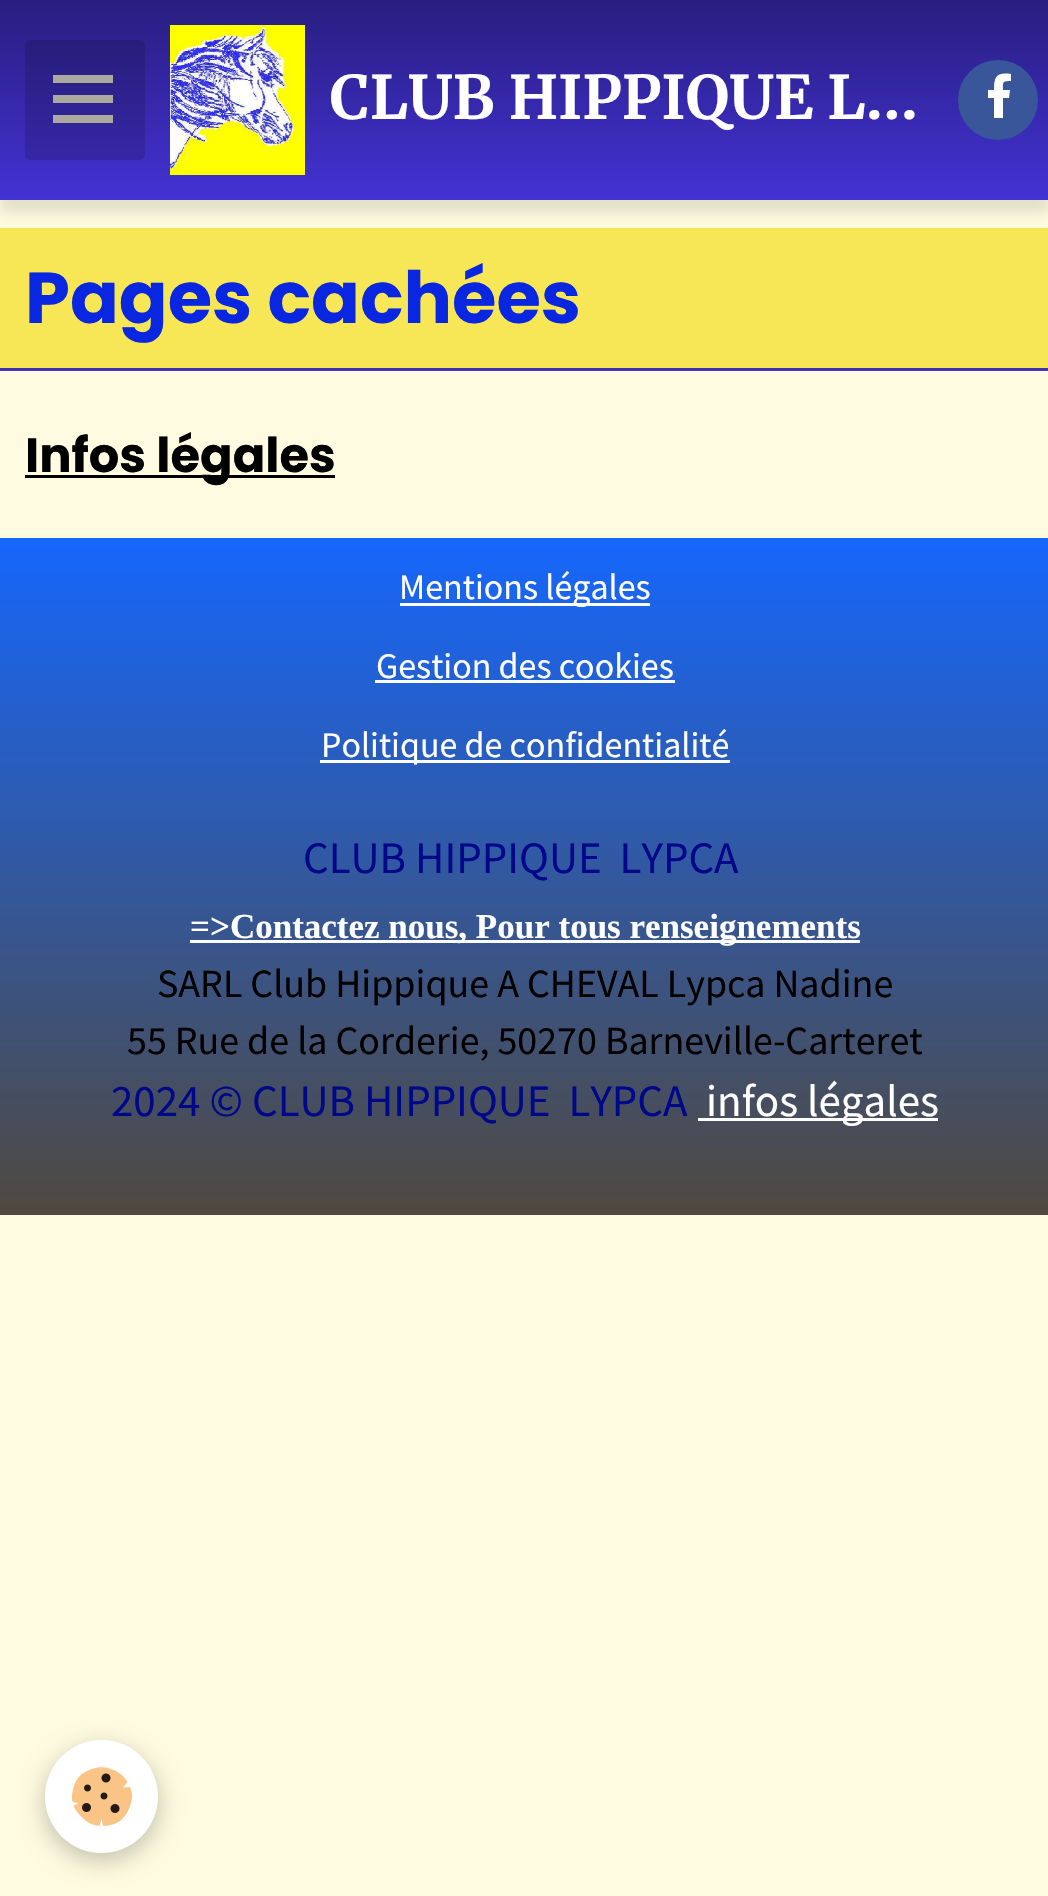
void draw(SkCanvas* canvas) {
  SkPaint paint;
  paint.setAntiAlias(true);
  auto face = [&](const char* family, int weight, float size, bool italic = false) {
    SkFontStyle style(weight, SkFontStyle::kNormal_Width,
      italic ? SkFontStyle::kItalic_Slant : SkFontStyle::kUpright_Slant);
    SkFont result(fontMgr->matchFamilyStyle(family, style), size);
    result.setSubpixel(true);
    return result;
  };
  auto paste = [&](const char* path, float x, float y, float w, float h) {
    auto image = SkImages::DeferredFromEncodedData(SkData::MakeFromFileName(path));
    canvas->drawImageRect(image, SkRect::MakeXYWH(x, y, w, h), SkSamplingOptions());
  };
  auto shape = [&](const char* data, bool evenOdd = false) {
    SkPath result = *SkParsePath::FromSVGString(data);
    if (evenOdd) result.setFillType(SkPathFillType::kEvenOdd);
    return result;
  };
  canvas->clear(0xfffefbe0);
  paint.setColor(0xff4535ca);
  canvas->drawRect(SkRect::MakeXYWH(0, 370, 1048, 1), paint);
  paint.setColor(0xfff7e756);
  canvas->drawRect(SkRect::MakeXYWH(0, 228, 1048, 140), paint);
  paint.setColor(0x1a000000);
  paint.setMaskFilter(SkMaskFilter::MakeBlur(kNormal_SkBlurStyle, 6));
  canvas->drawRect(SkRect::MakeXYWH(0, 13, 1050, 200), paint);
  paint.setMaskFilter(nullptr);
  {
    const SkColor colors[] = {0xff281e7f, 0xff4332d4};
    const float stops[] = {0, 1};
    const SkPoint ends[] = {{525, 0}, {525, 200}};
    paint.setShader(SkGradientShader::MakeLinear(ends, colors, stops, 2, SkTileMode::kClamp));
    paint.setAlpha(255);
  }
  canvas->drawRect(SkRect::MakeXYWH(0, 0, 1048, 200), paint);
  paint.setShader(nullptr);
  paint.setColor(0x26000000);
  canvas->drawRoundRect(SkRect::MakeXYWH(25, 40, 120, 120), 5, 5, paint);
  {
    const struct { float x, y, w, h; SkColor color; } items[] = {
      {53, 95, 60, 8, 0xffaca99f},
      {53, 75, 60, 8, 0xffaca99f},
      {53, 115, 60, 8, 0xffaca99f},
    };
    for (auto [x, y, w, h, color] : items) {
      paint.setColor(color);
      canvas->drawRect(SkRect::MakeXYWH(x, y, w, h), paint);
    }
  }
  paste("img/1.png", 170, 25, 135, 150);
  paint.setColor(0xff385699);
  canvas->drawCircle(998, 100, 40, paint);
  paint.setColor(0xffffffff);
  canvas->drawPath(shape("M1011 74V81C1002 81 1003 82 1003 90H1010L1009 98H1003V118H994V98H988V90H994C994 77 996 72 1011 74Z"), paint);
  paint.setColor(0xff4431ad);
  canvas->drawRect(SkRect::MakeXYWH(0, 368, 1048, 2), paint);
  paint.setColor(0xff000000);
  canvas->drawRect(SkRect::MakeXYWH(25, 475, 310, 3), paint);
  {
    const SkColor colors[] = {0xff1667fc, 0xff4f4940};
    const float stops[] = {0, 1};
    const SkPoint ends[] = {{525, 537}, {525, 1215}};
    paint.setShader(SkGradientShader::MakeLinear(ends, colors, stops, 2, SkTileMode::kClamp));
    paint.setAlpha(255);
  }
  canvas->drawRect(SkRect::MakeXYWH(0, 538, 1048, 677), paint);
  paint.setShader(nullptr);
  {
    const struct { float x, y, w, h; SkColor color; } items[] = {
      {400, 603, 250, 3, 0xffffffff},
      {375, 680, 300, 3, 0xffffffff},
      {320, 760, 410, 3, 0xffffffff},
      {190, 940, 670, 3, 0xffffffff},
      {698, 1118, 240, 3, 0xffffffff},
    };
    for (auto [x, y, w, h, color] : items) {
      paint.setColor(color);
      canvas->drawRect(SkRect::MakeXYWH(x, y, w, h), paint);
    }
  }
  paint.setColor(0x3d000000);
  paint.setMaskFilter(SkMaskFilter::MakeBlur(kNormal_SkBlurStyle, 12.5f));
  canvas->drawRoundRect(SkRect::MakeXYWH(45, 1748, 113, 112), 56, 56, paint);
  paint.setMaskFilter(nullptr);
  paint.setColor(0xffffffff);
  canvas->drawCircle(101.5f, 1796.5f, 56.5f, paint);
  paste("img/2.png", 72, 1767, 60, 59);
  auto f0 = face("Merriweather", 700, 60);
  canvas->drawString("CLUB HIPPIQUE L…", 330, 119, f0, paint);
  auto f1 = face("Poppins", 700, 72);
  paint.setColor(0xff0926e0);
  canvas->drawString("Pages cachées", 25, 323, f1, paint);
  auto f2 = face("Poppins", 700, 48);
  paint.setColor(0xff000000);
  canvas->drawString("Infos légales", 25, 472, f2, paint);
  auto f3 = face("Source Sans Pro", 400, 36);
  paint.setColor(0xffffffff);
  {
    const struct { const char* s; float x, y; } items[] = {
      {"Mentions légales", 399, 599},
      {"Gestion des cookies", 376, 678},
      {"Politique de confidentialité", 321, 757},
    };
    for (auto [s, x, y] : items) {
      canvas->drawString(s, x, y, f3, paint);
    }
  }
  auto f4 = face("Source Sans Pro", 400, 45);
  paint.setColor(0xff000789);
  canvas->drawString("CLUB HIPPIQUE  LYPCA", 303, 873, f4, paint);
  auto f5 = face("Liberation Serif", 700, 35);
  paint.setColor(0xffffffff);
  canvas->drawString("=>Contactez nous, Pour tous renseignements", 190, 938, f5, paint);
  auto f6 = face("Source Sans Pro", 400, 40);
  paint.setColor(0xff000000);
  canvas->drawString("SARL Club Hippique A CHEVAL Lypca Nadine", 157, 997, f6, paint);
  canvas->drawString("55 Rue de la Corderie, 50270 Barneville-Carteret", 127, 1054, f6, paint);
  paint.setColor(0xff000789);
  canvas->drawString("2024 © CLUB HIPPIQUE  LYPCA", 111, 1116, f4, paint);
  paint.setColor(0xffffffff);
  canvas->drawString("infos légales", 706, 1116, f4, paint);
}
